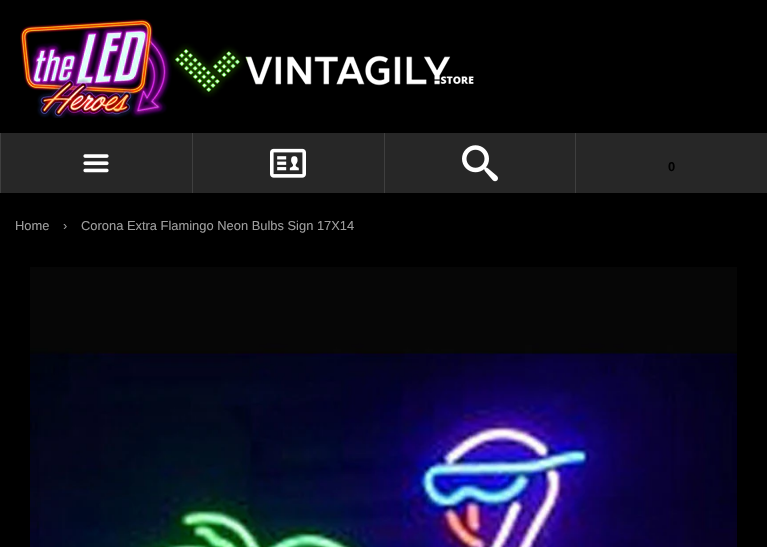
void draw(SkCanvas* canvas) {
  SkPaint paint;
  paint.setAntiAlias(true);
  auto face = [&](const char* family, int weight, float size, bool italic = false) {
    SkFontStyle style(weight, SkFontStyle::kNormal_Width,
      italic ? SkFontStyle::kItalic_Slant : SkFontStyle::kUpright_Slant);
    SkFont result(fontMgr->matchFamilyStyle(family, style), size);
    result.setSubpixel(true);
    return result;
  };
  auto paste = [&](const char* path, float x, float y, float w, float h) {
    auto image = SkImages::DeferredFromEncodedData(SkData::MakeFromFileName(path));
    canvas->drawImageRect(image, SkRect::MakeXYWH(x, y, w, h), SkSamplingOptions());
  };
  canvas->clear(0xff000000);
  paste("img/1.png", 20, 19, 454, 99);
  paint.setColor(0xff272727);
  canvas->drawRect(SkRect::MakeXYWH(1, 133, 191, 60), paint);
  paint.setColor(0xff3f3f3f);
  canvas->drawRect(SkRect::MakeXYWH(0, 133, 1, 60), paint);
  paste("img/2.png", 83, 154, 26, 19);
  paint.setColor(0xff272727);
  canvas->drawRect(SkRect::MakeXYWH(193, 133, 191, 60), paint);
  paint.setColor(0xff3f3f3f);
  canvas->drawRect(SkRect::MakeXYWH(192, 133, 1, 60), paint);
  paste("img/3.png", 270, 148, 36, 30);
  paint.setColor(0xff272727);
  canvas->drawRect(SkRect::MakeXYWH(385, 133, 190, 60), paint);
  paint.setColor(0xff3f3f3f);
  canvas->drawRect(SkRect::MakeXYWH(384, 133, 1, 60), paint);
  paste("img/4.png", 462, 145, 36, 37);
  paint.setColor(0xff272727);
  canvas->drawRect(SkRect::MakeXYWH(576, 133, 191, 60), paint);
  paint.setColor(0xff3f3f3f);
  canvas->drawRect(SkRect::MakeXYWH(575, 133, 1, 60), paint);
  paste("img/5.png", 30, 267, 707, 280);
  auto f0 = face("Liberation Sans", 700, 12.9f);
  paint.setColor(0xff000000);
  canvas->drawString("0", 668, 171, f0, paint);
  auto f1 = face("Liberation Sans", 400, 12.9f);
  paint.setColor(0xff9d9d9d);
  {
    const struct { const char* s; float x, y; } items[] = {
      {"Home", 15, 230},
      {"›", 63, 230},
      {"Corona Extra Flamingo Neon Bulbs Sign 17X14", 81, 230},
    };
    for (auto [s, x, y] : items) {
      canvas->drawString(s, x, y, f1, paint);
    }
  }
}
